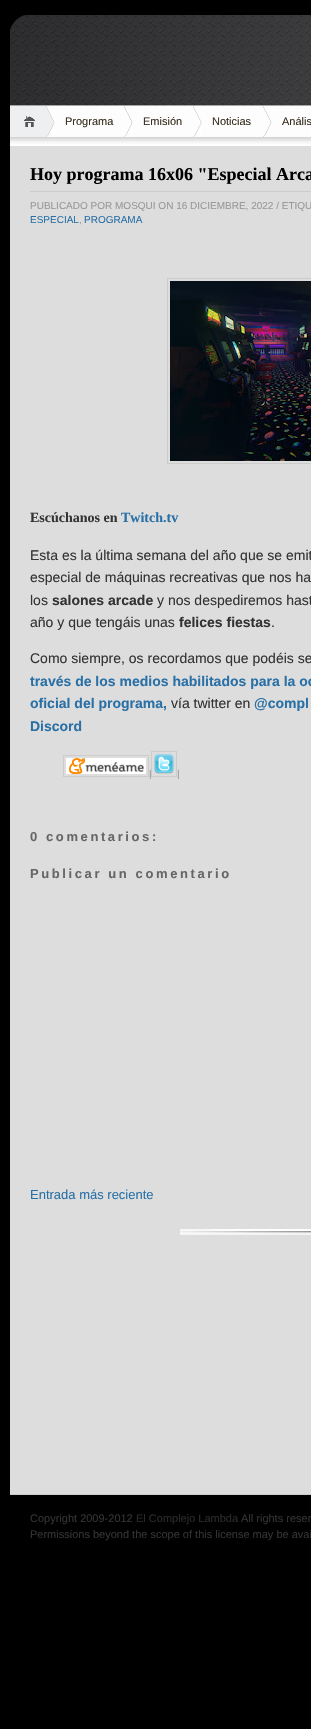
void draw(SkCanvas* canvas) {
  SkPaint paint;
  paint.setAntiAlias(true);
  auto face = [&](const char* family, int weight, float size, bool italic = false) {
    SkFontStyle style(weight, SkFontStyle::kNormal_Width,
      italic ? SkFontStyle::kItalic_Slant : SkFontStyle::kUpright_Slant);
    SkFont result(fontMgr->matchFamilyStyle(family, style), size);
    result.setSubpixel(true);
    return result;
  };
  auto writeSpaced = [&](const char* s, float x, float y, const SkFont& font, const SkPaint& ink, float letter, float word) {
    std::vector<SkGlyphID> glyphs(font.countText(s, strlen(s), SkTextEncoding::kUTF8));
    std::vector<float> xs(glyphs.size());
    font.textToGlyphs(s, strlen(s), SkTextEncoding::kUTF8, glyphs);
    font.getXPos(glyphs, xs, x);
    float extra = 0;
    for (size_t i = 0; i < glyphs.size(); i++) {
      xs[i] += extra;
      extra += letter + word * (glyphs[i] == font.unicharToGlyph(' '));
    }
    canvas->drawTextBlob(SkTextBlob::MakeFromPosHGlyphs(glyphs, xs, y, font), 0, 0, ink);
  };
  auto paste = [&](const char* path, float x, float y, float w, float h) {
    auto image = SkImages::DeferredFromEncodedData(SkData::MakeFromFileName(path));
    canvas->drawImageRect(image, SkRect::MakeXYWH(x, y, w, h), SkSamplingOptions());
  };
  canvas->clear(0xff000000);
  paste("img/1.png", 10, 15, 301, 90);
  paint.setColor(0xffa6a6a6);
  canvas->drawRect(SkRect::MakeXYWH(10, 105, 301, 1), paint);
  paste("img/2.png", 10, 106, 43, 31);
  paste("img/3.png", 46, 106, 85, 31);
  paste("img/4.png", 124, 106, 77, 31);
  paste("img/5.png", 193, 106, 77, 31);
  paste("img/6.png", 263, 106, 48, 31);
  paint.setColor(0xffdddddd);
  canvas->drawRect(SkRect::MakeXYWH(10, 146, 301, 1348), paint);
  paste("img/7.png", 10, 137, 301, 9);
  paste("img/8.png", 180, 1229, 131, 6);
  paint.setColor(0xffcccccc);
  canvas->drawRect(SkRect::MakeXYWH(30, 191, 281, 1), paint);
  paint.setStroke(true);
  paint.setStrokeWidth(1);
  canvas->drawRect(SkRect::MakeXYWH(167.5f, 278.5f, 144, 185), paint);
  paste("img/9.png", 170, 281, 141, 180);
  canvas->drawRect(SkRect::MakeXYWH(151.5f, 751.5f, 25, 25), paint);
  canvas->drawRect(SkRect::MakeXYWH(63.5f, 755.5f, 85, 21), paint);
  paste("img/10.png", 154, 754, 20, 20);
  paste("img/11.png", 66, 758, 80, 16);
  paint.setStroke(false);
  canvas->drawRect(SkRect::MakeXYWH(10, 1494, 301, 1), paint);
  auto f0 = face("Liberation Sans", 400, 11);
  paint.setColor(0xff382e1f);
  {
    const struct { const char* s; float x, y; } items[] = {
      {"Programa", 65, 125},
      {"Emisión", 143, 125},
      {"Noticias", 212, 125},
      {"Anális", 282, 125},
    };
    for (auto [s, x, y] : items) {
      canvas->drawString(s, x, y, f0, paint);
    }
  }
  auto f1 = face("Liberation Serif", 700, 18);
  paint.setColor(0xff000000);
  canvas->drawString("Hoy programa 16x06 \"Especial Arca", 30, 180, f1, paint);
  auto f2 = face("Liberation Sans", 400, 10);
  paint.setColor(0xff999999);
  canvas->drawString("PUBLICADO POR MOSQUI ON 16 DICIEMBRE, 2022 / ETIQU", 30, 209, f2, paint);
  paint.setColor(0xff2970a6);
  canvas->drawString("ESPECIAL", 30, 223, f2, paint);
  paint.setColor(0xff999999);
  canvas->drawString(",", 79, 223, f2, paint);
  paint.setColor(0xff2970a6);
  canvas->drawString("PROGRAMA", 84, 223, f2, paint);
  auto f3 = face("Liberation Serif", 700, 14);
  paint.setColor(0xff333333);
  canvas->drawString("Escúchanos en", 30, 522, f3, paint);
  paint.setColor(0xff2970a6);
  canvas->drawString("Twitch.tv", 121, 522, f3, paint);
  auto f4 = face("Liberation Sans", 400, 14);
  paint.setColor(0xff333333);
  {
    const struct { const char* s; float x, y; } items[] = {
      {"Esta es la última semana del año que se emit", 30, 560},
      {"especial de máquinas recreativas que nos ha", 30, 582},
      {"los", 30, 605},
    };
    for (auto [s, x, y] : items) {
      canvas->drawString(s, x, y, f4, paint);
    }
  }
  auto f5 = face("Liberation Sans", 700, 14);
  canvas->drawString("salones arcade", 52, 605, f5, paint);
  canvas->drawString("y nos despediremos hast", 157, 605, f4, paint);
  canvas->drawString("año y que tengáis unas", 30, 627, f4, paint);
  canvas->drawString("felices fiestas", 179, 627, f5, paint);
  canvas->drawString(".", 271, 627, f4, paint);
  canvas->drawString("Como siempre, os recordamos que podéis se", 30, 663, f4, paint);
  paint.setColor(0xff2970a6);
  canvas->drawString("través de los medios habilitados para la oc", 30, 686, f5, paint);
  canvas->drawString("oficial del programa,", 30, 708, f5, paint);
  paint.setColor(0xff333333);
  canvas->drawString("vía twitter en", 171, 708, f4, paint);
  paint.setColor(0xff2970a6);
  canvas->drawString("@compl", 254, 708, f5, paint);
  canvas->drawString("Discord", 30, 731, f5, paint);
  paint.setColor(0xff999999);
  canvas->drawString("|", 149, 777, f2, paint);
  canvas->drawString("|", 177, 777, f2, paint);
  auto f6 = face("Liberation Sans", 700, 13);
  paint.setColor(0xff666666);
  writeSpaced("0 comentarios:", 30, 841, f6, paint, 2.6f, 0);
  writeSpaced("Publicar un comentario", 30, 878, f6, paint, 2.6f, 0);
  auto f7 = face("Liberation Sans", 400, 13);
  paint.setColor(0xff2970a6);
  canvas->drawString("Entrada más reciente", 30, 1199, f7, paint);
  paint.setColor(0xff333333);
  canvas->drawString("Copyright 2009-2012", 30, 1522, f0, paint);
  paint.setColor(0xff2a2a2a);
  canvas->drawString("El Complejo Lambda", 136, 1522, f0, paint);
  paint.setColor(0xff333333);
  canvas->drawString("All rights reser", 241, 1522, f0, paint);
  canvas->drawString("Permissions beyond the scope of this license may be avai", 30, 1538, f0, paint);
}
